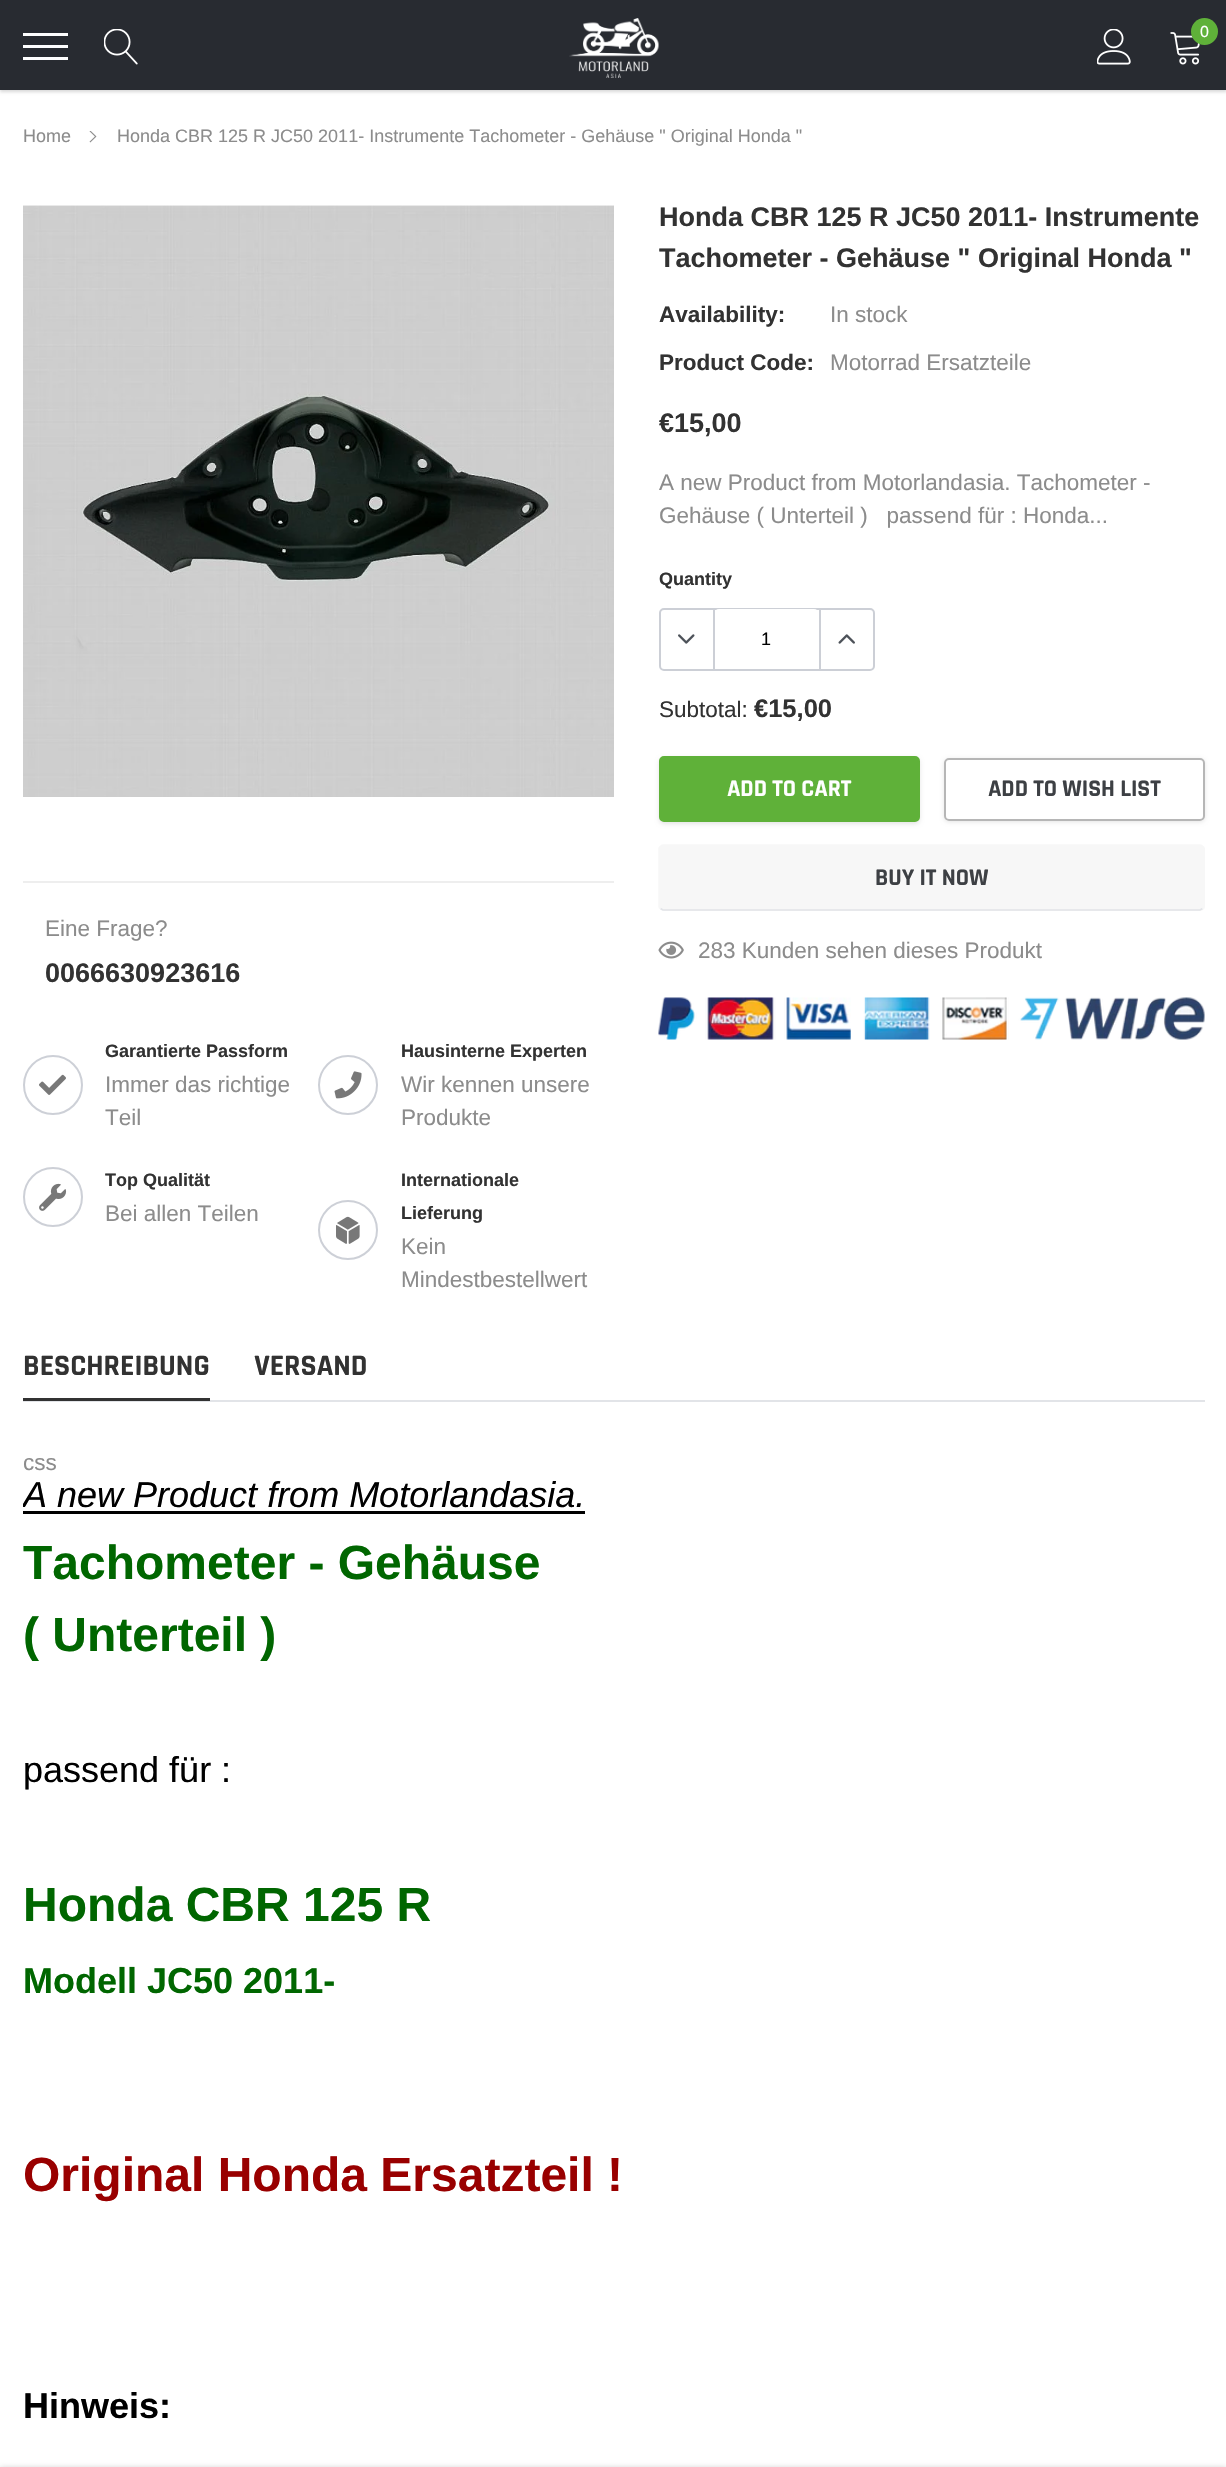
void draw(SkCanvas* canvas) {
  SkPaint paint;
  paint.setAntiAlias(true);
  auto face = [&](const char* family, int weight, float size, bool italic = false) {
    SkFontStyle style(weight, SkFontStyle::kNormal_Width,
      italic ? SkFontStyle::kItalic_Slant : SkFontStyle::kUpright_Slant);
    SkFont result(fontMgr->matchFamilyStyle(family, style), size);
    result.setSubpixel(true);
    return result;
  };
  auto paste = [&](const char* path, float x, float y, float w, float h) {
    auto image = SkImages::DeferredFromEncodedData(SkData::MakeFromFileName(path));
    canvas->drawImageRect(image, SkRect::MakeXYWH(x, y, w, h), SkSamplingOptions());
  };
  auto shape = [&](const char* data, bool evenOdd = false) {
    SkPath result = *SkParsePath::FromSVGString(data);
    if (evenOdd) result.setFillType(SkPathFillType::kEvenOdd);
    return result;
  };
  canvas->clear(0xffffffff);
  paint.setColor(0x26000000);
  paint.setMaskFilter(SkMaskFilter::MakeBlur(kNormal_SkBlurStyle, 1.5f));
  canvas->drawRect(SkRect::MakeXYWH(0, 2, 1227, 90), paint);
  paint.setMaskFilter(nullptr);
  {
    const struct { float x, y, w, h; SkColor color; } items[] = {
      {0, 0, 1226, 90, 0xff282b31},
      {23, 45, 45, 3, 0xffffffff},
      {23, 33, 45, 3, 0xffffffff},
      {23, 57, 45, 3, 0xffffffff},
    };
    for (auto [x, y, w, h, color] : items) {
      paint.setColor(color);
      canvas->drawRect(SkRect::MakeXYWH(x, y, w, h), paint);
    }
  }
  paste("img/1.png", 104, 29, 34, 36);
  paste("img/2.png", 569, 18, 90, 60);
  paste("img/3.png", 1097, 29, 34, 36);
  paste("img/4.png", 1170, 32, 30, 33);
  paint.setColor(0xff5fb139);
  canvas->drawCircle(1204.5f, 31.5f, 13.5f, paint);
  paste("img/5.png", 89, 131, 8, 12);
  paint.setStroke(true);
  paint.setStrokeWidth(2);
  paint.setColor(0xffcccfd6);
  canvas->drawRoundRect(SkRect::MakeXYWH(660, 609, 214, 61), 4, 4, paint);
  paint.setStroke(false);
  paint.setColor(0xffffffff);
  canvas->drawRoundRect(SkRect::MakeXYWH(714, 609, 105, 60), 5, 5, paint);
  paint.setColor(0xffcccfd6);
  canvas->drawRect(SkRect::MakeXYWH(713, 609, 2, 60), paint);
  paste("img/6.png", 678, 634, 17, 10);
  canvas->drawRect(SkRect::MakeXYWH(819, 609, 2, 60), paint);
  paste("img/7.png", 838, 634, 17, 10);
  paint.setColor(0x1a000000);
  paint.setMaskFilter(SkMaskFilter::MakeBlur(kNormal_SkBlurStyle, 2));
  canvas->drawRoundRect(SkRect::MakeXYWH(659, 758, 261, 66), 5, 5, paint);
  paint.setMaskFilter(nullptr);
  paint.setColor(0xff5fb139);
  canvas->drawRoundRect(SkRect::MakeXYWH(660, 757, 259, 64), 4, 4, paint);
  paint.setStroke(true);
  canvas->drawRoundRect(SkRect::MakeXYWH(660, 757, 259, 64), 4, 4, paint);
  canvas->save();
  canvas->clipPath(shape("M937 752H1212V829H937ZM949 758H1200C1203 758 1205 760 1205 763V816C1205 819 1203 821 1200 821H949C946 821 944 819 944 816V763C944 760 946 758 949 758Z", true), true);
  paint.setStroke(false);
  paint.setColor(0x1a000000);
  paint.setMaskFilter(SkMaskFilter::MakeBlur(kNormal_SkBlurStyle, 2));
  canvas->drawRoundRect(SkRect::MakeXYWH(944, 759, 261, 63), 5, 5, paint);
  paint.setMaskFilter(nullptr);
  canvas->restore();
  paint.setStroke(true);
  paint.setColor(0xffb6b6b6);
  canvas->drawRoundRect(SkRect::MakeXYWH(945, 759, 259, 61), 4, 4, paint);
  paint.setStroke(false);
  paint.setColor(0xfff7f7f7);
  canvas->drawRoundRect(SkRect::MakeXYWH(659, 845, 546, 66), 5, 5, paint);
  paint.setStroke(true);
  paint.setStrokeWidth(1.5f);
  paint.setColor(0xffe2e4e8);
  canvas->drawPath(shape("M1202.5 908.5L1200 910H663L660.5 908.5"), paint);
  paint.setColor(0xfff7f7f7);
  canvas->drawPath(shape("M660.5 908.5C659.5 908 659 907 659 906V849C659 848 659.5 847 660.5 846.5C661 845.5 662 845 663 845H1200C1201 845 1202 845.5 1202.5 846.5C1203.5 847 1204 848 1204 849V906C1204 907 1203.5 908 1202.5 908.5"), paint);
  paste("img/8.png", 658, 941, 26, 18);
  paste("img/9.png", 658, 997, 547, 43);
  paste("img/10.png", 23, 205, 591, 592);
  paint.setStroke(false);
  paint.setColor(0xffeeeeee);
  canvas->drawRect(SkRect::MakeXYWH(23, 881, 591, 2), paint);
  paint.setStroke(true);
  paint.setStrokeWidth(2);
  paint.setColor(0xffcdd0d7);
  canvas->drawCircle(53, 1085, 29, paint);
  paste("img/11.png", 39, 1074, 27, 21);
  canvas->drawCircle(348, 1085, 29, paint);
  paste("img/12.png", 334, 1071, 28, 28);
  canvas->drawCircle(53, 1197, 29, paint);
  paste("img/13.png", 39, 1183, 28, 28);
  canvas->drawCircle(348, 1230, 29, paint);
  paste("img/14.png", 336, 1216, 24, 28);
  paint.setStroke(false);
  paint.setColor(0x33000000);
  paint.setMaskFilter(SkMaskFilter::MakeBlur(kNormal_SkBlurStyle, 3));
  canvas->drawRect(SkRect::MakeXYWH(0, 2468, 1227, 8), paint);
  paint.setMaskFilter(nullptr);
  {
    const struct { float x, y, w, h; SkColor color; } items[] = {
      {23, 1400, 1182, 2, 0xffe2e4e8},
      {23, 1398, 187, 3, 0xff323232},
      {23, 1511, 562, 3, 0xff000000},
    };
    for (auto [x, y, w, h, color] : items) {
      paint.setColor(color);
      canvas->drawRect(SkRect::MakeXYWH(x, y, w, h), paint);
    }
  }
  auto f0 = face("Arimo", 400, 16);
  paint.setColor(0xffffffff);
  canvas->drawString("0", 1200, 37, f0, paint);
  auto f1 = face("Arimo", 400, 18);
  paint.setColor(0xff8c8c8c);
  canvas->drawString("Home", 23, 142, f1, paint);
  canvas->drawString("Honda CBR 125 R JC50 2011- Instrumente Tachometer - Gehäuse \" Original Honda \"", 117, 142, f1, paint);
  auto f2 = face("Arimo", 700, 27);
  paint.setColor(0xff323232);
  canvas->drawString("Honda CBR 125 R JC50 2011- Instrumente", 659, 226, f2, paint);
  canvas->drawString("Tachometer - Gehäuse \" Original Honda \"", 659, 267, f2, paint);
  auto f3 = face("Arimo", 700, 22.5f);
  canvas->drawString("Availability:", 659, 322, f3, paint);
  auto f4 = face("Arimo", 400, 22.5f);
  paint.setColor(0xff8c8c8c);
  canvas->drawString("In stock", 830, 322, f4, paint);
  paint.setColor(0xff323232);
  canvas->drawString("Product Code:", 659, 370, f3, paint);
  paint.setColor(0xff8c8c8c);
  canvas->drawString("Motorrad Ersatzteile", 830, 370, f4, paint);
  paint.setColor(0xff323232);
  canvas->drawString("€15,00", 659, 432, f2, paint);
  paint.setColor(0xff8c8c8c);
  canvas->drawString("A new Product from Motorlandasia. Tachometer -", 659, 490, f4, paint);
  canvas->drawString("Gehäuse ( Unterteil )   passend für : Honda...", 659, 523, f4, paint);
  auto f5 = face("Arimo", 700, 18);
  paint.setColor(0xff323232);
  canvas->drawString("Quantity", 659, 585, f5, paint);
  paint.setColor(0xff000000);
  canvas->drawString("1", 761, 645, f1, paint);
  paint.setColor(0xff323232);
  canvas->drawString("Subtotal:", 659, 717, f4, paint);
  auto f6 = face("Arimo", 700, 25.5f);
  canvas->drawString("€15,00", 754, 717, f6, paint);
  auto f7 = face("Rajdhani", 700, 24);
  paint.setColor(0xffffffff);
  canvas->drawString("ADD TO CART", 727, 796, f7, paint);
  paint.setColor(0xff3d4044);
  canvas->drawString("ADD TO WISH LIST", 988, 796, f7, paint);
  canvas->drawString("BUY IT NOW", 875, 885, f7, paint);
  paint.setColor(0xff8c8c8c);
  canvas->drawString("283 Kunden sehen dieses Produkt", 698, 958, f4, paint);
  canvas->drawString("Eine Frage?", 45, 936, f4, paint);
  paint.setColor(0xff323232);
  canvas->drawString("0066630923616", 45, 982, f2, paint);
  canvas->drawString("Garantierte Passform", 105, 1057, f5, paint);
  paint.setColor(0xff8c8c8c);
  canvas->drawString("Immer das richtige", 105, 1092, f4, paint);
  canvas->drawString("Teil", 105, 1125, f4, paint);
  paint.setColor(0xff323232);
  canvas->drawString("Hausinterne Experten", 401, 1057, f5, paint);
  paint.setColor(0xff8c8c8c);
  canvas->drawString("Wir kennen unsere", 401, 1092, f4, paint);
  canvas->drawString("Produkte", 401, 1125, f4, paint);
  paint.setColor(0xff323232);
  canvas->drawString("Top Qualität", 105, 1186, f5, paint);
  paint.setColor(0xff8c8c8c);
  canvas->drawString("Bei allen Teilen", 105, 1221, f4, paint);
  paint.setColor(0xff323232);
  canvas->drawString("Internationale", 401, 1186, f5, paint);
  canvas->drawString("Lieferung", 401, 1219, f5, paint);
  paint.setColor(0xff8c8c8c);
  canvas->drawString("Kein", 401, 1254, f4, paint);
  canvas->drawString("Mindestbestellwert", 401, 1287, f4, paint);
  auto f8 = face("Rajdhani", 700, 30);
  paint.setColor(0xff323232);
  canvas->drawString("BESCHREIBUNG", 23, 1375, f8, paint);
  canvas->drawString("VERSAND", 254, 1375, f8, paint);
  paint.setColor(0xff8c8c8c);
  canvas->drawString("css", 23, 1470, f4, paint);
  canvas->save();
  canvas->clipRect(SkRect::MakeXYWH(23, 1446, 1182, 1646));
  auto f9 = face("Arimo", 400, 36, true);
  paint.setColor(0xff000000);
  canvas->drawString("A new Product from Motorlandasia.", 23, 1507, f9, paint);
  canvas->restore();
  auto f10 = face("Arimo", 700, 48);
  paint.setColor(0xff006600);
  canvas->drawString("Tachometer - Gehäuse", 23, 1579, f10, paint);
  canvas->drawString("( Unterteil )", 23, 1651, f10, paint);
  auto f11 = face("Arimo", 400, 36);
  paint.setColor(0xff000000);
  canvas->drawString("passend für :", 23, 1782, f11, paint);
  paint.setColor(0xff006600);
  canvas->drawString("Honda CBR 125 R", 23, 1921, f10, paint);
  auto f12 = face("Arimo", 700, 36);
  canvas->drawString("Modell JC50 2011-", 23, 1993, f12, paint);
  paint.setColor(0xff990000);
  canvas->drawString("Original Honda Ersatzteil !", 23, 2191, f10, paint);
  paint.setColor(0xff000000);
  canvas->drawString("Hinweis:", 23, 2418, f12, paint);
}
